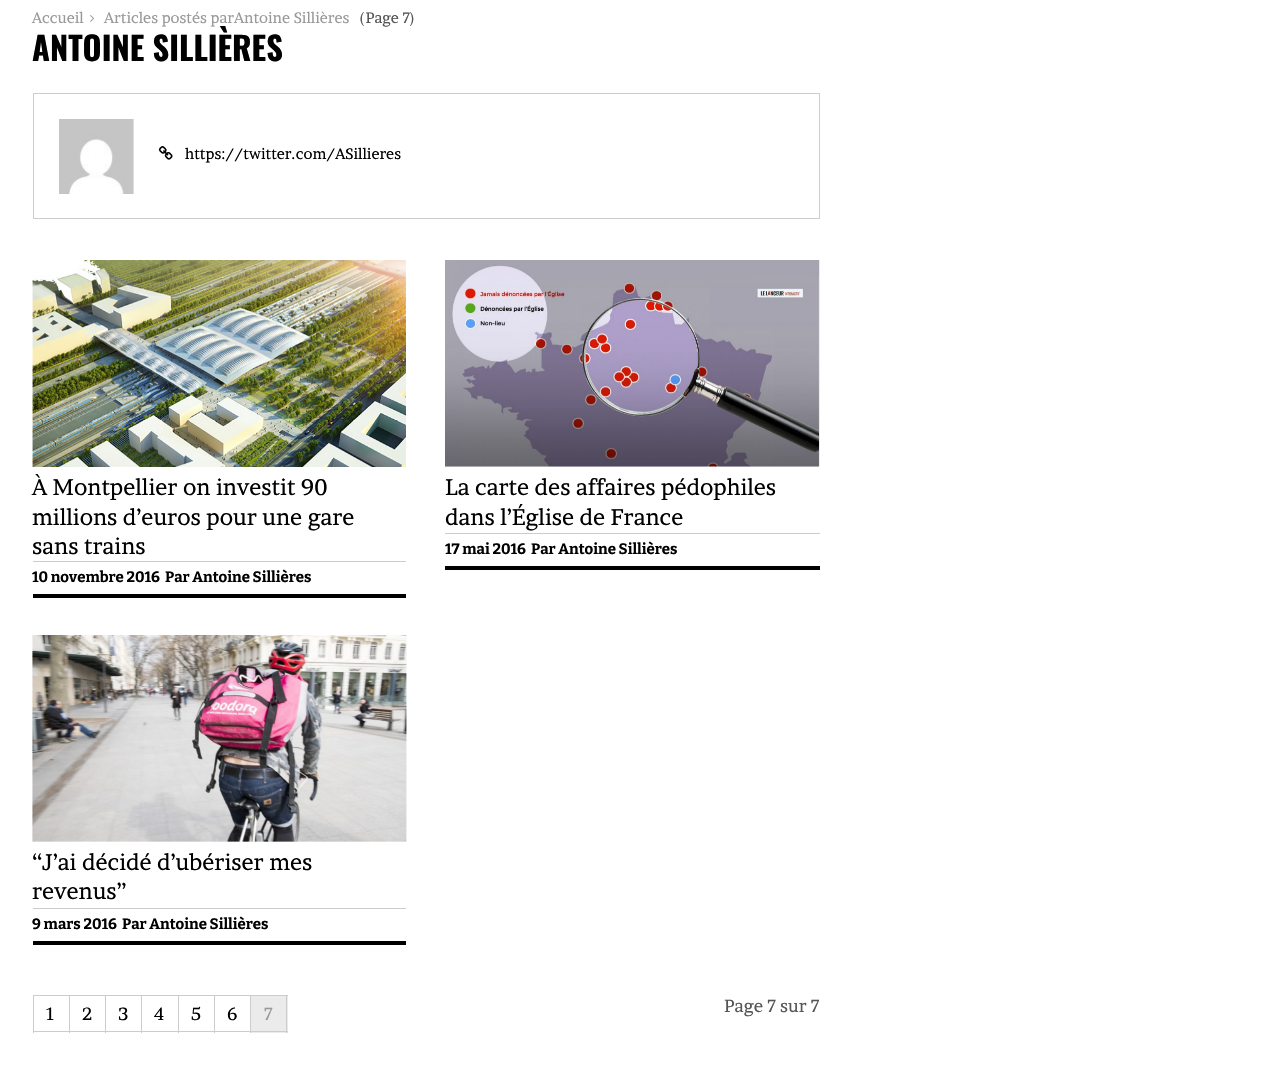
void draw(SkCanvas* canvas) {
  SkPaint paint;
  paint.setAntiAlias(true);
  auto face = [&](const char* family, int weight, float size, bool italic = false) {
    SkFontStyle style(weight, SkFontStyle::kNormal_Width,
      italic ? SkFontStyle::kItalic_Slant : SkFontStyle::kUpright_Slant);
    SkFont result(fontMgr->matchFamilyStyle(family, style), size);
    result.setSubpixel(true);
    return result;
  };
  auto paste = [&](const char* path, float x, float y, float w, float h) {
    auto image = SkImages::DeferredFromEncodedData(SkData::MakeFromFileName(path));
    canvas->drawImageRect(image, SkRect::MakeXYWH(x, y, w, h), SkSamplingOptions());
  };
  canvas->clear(0xffffffff);
  paste("img/1.png", 90, 15, 5, 7);
  paint.setStroke(true);
  paint.setStrokeWidth(1);
  paint.setColor(0xffcccccc);
  canvas->drawRect(SkRect::MakeXYWH(33.5f, 93.5f, 786, 125), paint);
  paste("img/2.png", 59, 119, 75, 75);
  paste("img/3.png", 158, 146, 15, 14);
  paste("img/4.png", 32, 260, 374, 207);
  paint.setStroke(false);
  {
    const struct { float x, y, w, h; SkColor color; } items[] = {
      {33, 561, 373, 1, 0xffcccccc},
      {33, 594, 373, 4, 0xff000000},
      {819, 260, 1, 206, 0xffebebeb},
    };
    for (auto [x, y, w, h, color] : items) {
      paint.setColor(color);
      canvas->drawRect(SkRect::MakeXYWH(x, y, w, h), paint);
    }
  }
  paste("img/5.png", 445, 260, 374, 207);
  paint.setColor(0xffcccccc);
  canvas->drawRect(SkRect::MakeXYWH(445, 533, 375, 1), paint);
  paint.setColor(0xff000000);
  canvas->drawRect(SkRect::MakeXYWH(445, 566, 375, 4), paint);
  paste("img/6.png", 32, 635, 375, 207);
  {
    const struct { float x, y, w, h; SkColor color; } items[] = {
      {33, 908, 373, 1, 0xffcccccc},
      {33, 941, 373, 4, 0xff000000},
      {33, 995, 1, 38, 0xffcccccc},
      {34, 995, 254, 1, 0xffcccccc},
      {69, 995, 1, 38, 0xffcccccc},
      {34, 1031, 36, 1, 0xffcccccc},
      {105, 995, 1, 38, 0xffcccccc},
      {70, 1031, 36, 1, 0xffcccccc},
      {141, 995, 1, 38, 0xffcccccc},
      {106, 1031, 37, 1, 0xffcccccc},
      {178, 995, 1, 38, 0xffcccccc},
      {143, 1031, 36, 1, 0xffcccccc},
      {214, 995, 1, 38, 0xffcccccc},
      {179, 1031, 36, 1, 0xffcccccc},
      {250, 995, 1, 38, 0xffcccccc},
      {215, 1031, 36, 1, 0xffcccccc},
      {251, 996, 37, 37, 0xffebebeb},
      {286, 995, 1, 38, 0xffcccccc},
      {251, 1031, 37, 1, 0xffcccccc},
    };
    for (auto [x, y, w, h, color] : items) {
      paint.setColor(color);
      canvas->drawRect(SkRect::MakeXYWH(x, y, w, h), paint);
    }
  }
  auto f0 = face("Brawler", 400, 15);
  paint.setColor(0xff999999);
  canvas->drawString("Accueil", 32, 23, f0, paint);
  canvas->drawString("Articles postés parAntoine Sillières", 104, 23, f0, paint);
  paint.setColor(0xff555555);
  canvas->drawString("(Page 7)", 360, 23, f0, paint);
  auto f1 = face("Oswald", 700, 32.5f);
  paint.setColor(0xff000000);
  canvas->drawString("ANTOINE SILLIÈRES", 32, 61, f1, paint);
  canvas->drawString("https://twitter.com/ASillieres", 185, 159, f0, paint);
  auto f2 = face("Brawler", 400, 22.5f);
  {
    const struct { const char* s; float x, y; } items[] = {
      {"À Montpellier on investit 90", 32, 495},
      {"millions d’euros pour une gare", 32, 525},
      {"sans trains", 32, 554},
    };
    for (auto [s, x, y] : items) {
      canvas->drawString(s, x, y, f2, paint);
    }
  }
  auto f3 = face("Bitter", 700, 15);
  canvas->drawString("10 novembre 2016", 32, 582, f3, paint);
  canvas->drawString("Par Antoine Sillières", 165, 582, f3, paint);
  canvas->drawString("La carte des affaires pédophiles", 445, 495, f2, paint);
  canvas->drawString("dans l’Église de France", 445, 525, f2, paint);
  canvas->drawString("17 mai 2016", 445, 554, f3, paint);
  canvas->drawString("Par Antoine Sillières", 531, 554, f3, paint);
  canvas->drawString("“J’ai décidé d’ubériser mes", 32, 870, f2, paint);
  canvas->drawString("revenus”", 32, 899, f2, paint);
  canvas->drawString("9 mars 2016", 32, 929, f3, paint);
  canvas->drawString("Par Antoine Sillières", 122, 929, f3, paint);
  auto f4 = face("Brawler", 400, 17.5f);
  {
    const struct { const char* s; float x, y; } items[] = {
      {"1", 46, 1020},
      {"2", 82, 1020},
      {"3", 118, 1020},
      {"4", 154, 1020},
      {"5", 191, 1020},
      {"6", 227, 1020},
    };
    for (auto [s, x, y] : items) {
      canvas->drawString(s, x, y, f4, paint);
    }
  }
  paint.setColor(0xff999999);
  canvas->drawString("7", 264, 1020, f4, paint);
  paint.setColor(0xff555555);
  canvas->drawString("Page 7 sur 7", 724, 1012, f4, paint);
}
